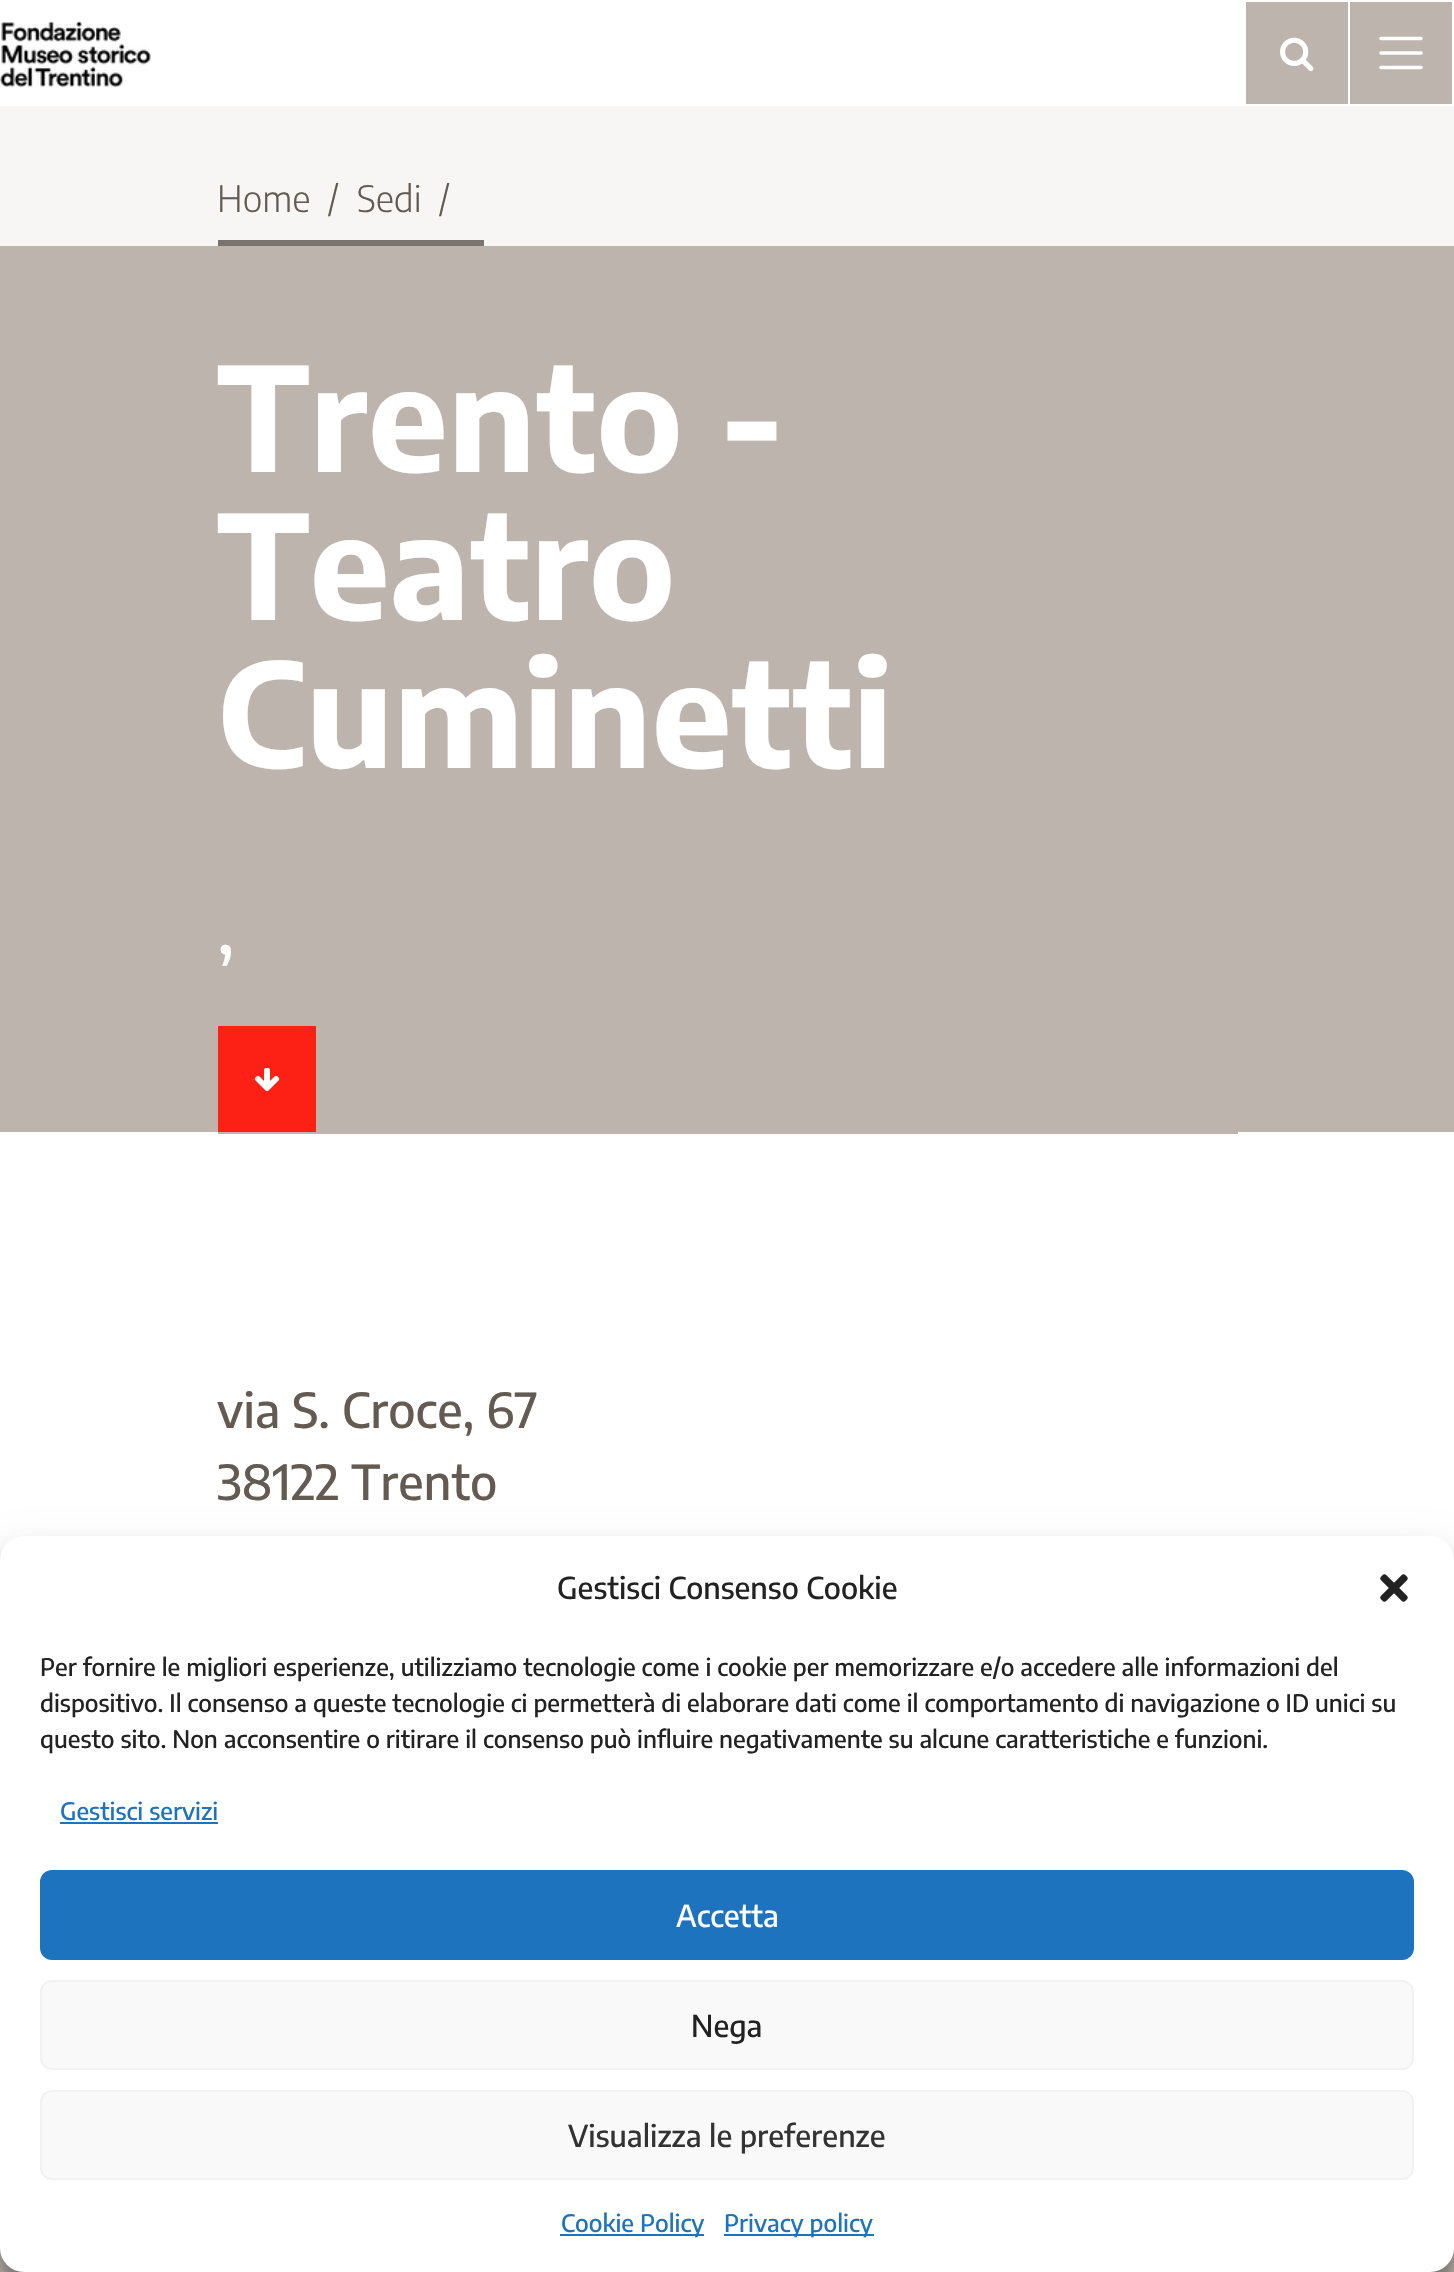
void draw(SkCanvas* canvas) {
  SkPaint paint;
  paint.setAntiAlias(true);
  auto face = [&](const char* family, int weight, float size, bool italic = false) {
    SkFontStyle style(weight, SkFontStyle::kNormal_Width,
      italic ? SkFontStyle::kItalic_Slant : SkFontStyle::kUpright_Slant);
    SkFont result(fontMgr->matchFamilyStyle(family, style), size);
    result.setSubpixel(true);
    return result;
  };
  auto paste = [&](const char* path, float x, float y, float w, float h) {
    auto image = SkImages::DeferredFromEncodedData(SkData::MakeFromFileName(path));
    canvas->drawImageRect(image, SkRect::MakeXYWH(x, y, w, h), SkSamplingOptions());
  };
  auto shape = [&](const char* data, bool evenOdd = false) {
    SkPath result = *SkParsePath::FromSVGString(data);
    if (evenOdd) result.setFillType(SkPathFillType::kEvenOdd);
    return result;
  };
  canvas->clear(0xffffffff);
  paste("img/1.png", 0, 21, 151, 67);
  paint.setColor(0xffbdb4ae);
  canvas->drawRect(SkRect::MakeXYWH(1246, 2, 102, 102), paint);
  paste("img/2.png", 1280, 37, 34, 35);
  canvas->drawRect(SkRect::MakeXYWH(1350, 2, 102, 102), paint);
  paint.setStroke(true);
  paint.setStrokeWidth(3.6f);
  paint.setStrokeCap(SkPaint::kRound_Cap);
  paint.setColor(0xffffffff);
  canvas->drawPath(shape("M1381 38.5H1421M1381 53H1421M1381 67.5H1421"), paint);
  paint.setStroke(false);
  {
    const struct { float x, y, w, h; SkColor color; } items[] = {
      {0, 106, 1454, 140, 0xfff7f6f5},
      {218, 240, 266, 6, 0xff7b736d},
      {0, 246, 1454, 886, 0xffbdb4ae},
      {218, 1026, 98, 106, 0xfffc2015},
    };
    for (auto [x, y, w, h, color] : items) {
      paint.setColor(color);
      canvas->drawRect(SkRect::MakeXYWH(x, y, w, h), paint);
    }
  }
  paste("img/3.png", 254, 1068, 26, 24);
  paint.setColor(0xffbdb4ae);
  canvas->drawRect(SkRect::MakeXYWH(218, 1132, 1020, 2), paint);
  canvas->drawRect(SkRect::MakeXYWH(0, 2248, 1454, 24), paint);
  paint.setColor(0x3b000000);
  paint.setMaskFilter(SkMaskFilter::MakeBlur(kNormal_SkBlurStyle, 6));
  canvas->drawRoundRect(SkRect::MakeXYWH(0, 1548, 1454, 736), 24, 24, paint);
  paint.setMaskFilter(nullptr);
  paint.setColor(0x30000000);
  paint.setMaskFilter(SkMaskFilter::MakeBlur(kNormal_SkBlurStyle, 20));
  canvas->drawRoundRect(SkRect::MakeXYWH(0, 1556, 1454, 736), 24, 24, paint);
  paint.setMaskFilter(nullptr);
  paint.setColor(0xffffffff);
  canvas->drawRoundRect(SkRect::MakeXYWH(0, 1536, 1454, 736), 24, 24, paint);
  paste("img/4.png", 1380, 1574, 28, 28);
  paint.setColor(0xff1e73be);
  canvas->drawRect(SkRect::MakeXYWH(60, 1822, 158, 2), paint);
  canvas->drawRoundRect(SkRect::MakeXYWH(41, 1871, 1372, 88), 11, 11, paint);
  paint.setStroke(true);
  paint.setStrokeWidth(2);
  paint.setStrokeCap(SkPaint::kButt_Cap);
  canvas->drawRoundRect(SkRect::MakeXYWH(41, 1871, 1372, 88), 11, 11, paint);
  paint.setStroke(false);
  paint.setColor(0xfff9f9f9);
  canvas->drawRoundRect(SkRect::MakeXYWH(41, 1981, 1372, 88), 11, 11, paint);
  paint.setStroke(true);
  paint.setColor(0xfff2f2f2);
  canvas->drawRoundRect(SkRect::MakeXYWH(41, 1981, 1372, 88), 11, 11, paint);
  paint.setStroke(false);
  paint.setColor(0xfff9f9f9);
  canvas->drawRoundRect(SkRect::MakeXYWH(41, 2091, 1372, 88), 11, 11, paint);
  paint.setStroke(true);
  paint.setColor(0xfff2f2f2);
  canvas->drawRoundRect(SkRect::MakeXYWH(41, 2091, 1372, 88), 11, 11, paint);
  paint.setStroke(false);
  paint.setColor(0xff1e73be);
  canvas->drawRect(SkRect::MakeXYWH(560, 2234, 144, 2), paint);
  canvas->drawRect(SkRect::MakeXYWH(724, 2234, 150, 2), paint);
  auto f0 = face("Encode Sans Condensed", 300, 36);
  paint.setColor(0xff635a52);
  {
    const struct { const char* s; float x, y; } items[] = {
      {"Home", 217, 212},
      {"/", 328, 212},
      {"Sedi", 357, 212},
      {"/", 439, 212},
    };
    for (auto [s, x, y] : items) {
      canvas->drawString(s, x, y, f0, paint);
    }
  }
  auto f1 = face("Encode Sans Condensed", 700, 144);
  paint.setColor(0xffffffff);
  {
    const struct { const char* s; float x, y; } items[] = {
      {"Trento -", 217, 472},
      {"Teatro", 217, 620},
      {"Cuminetti", 217, 768},
    };
    for (auto [s, x, y] : items) {
      canvas->drawString(s, x, y, f1, paint);
    }
  }
  auto f2 = face("Encode Sans Condensed", 500, 72);
  canvas->drawString(",", 217, 954, f2, paint);
  auto f3 = face("Encode Sans Condensed", 500, 48);
  paint.setColor(0xff635a52);
  canvas->drawString("via S. Croce, 67", 217, 1428, f3, paint);
  canvas->drawString("38122 Trento", 217, 1500, f3, paint);
  auto f4 = face("Encode Sans Condensed", 500, 30);
  paint.setColor(0xff222222);
  canvas->drawString("Gestisci Consenso Cookie", 557, 1599, f4, paint);
  auto f5 = face("Encode Sans Condensed", 500, 24);
  {
    const struct { const char* s; float x, y; } items[] = {
      {"Per fornire le migliori esperienze, utilizziamo tecnologie come i cookie per memorizzare e/o accedere alle informazioni del", 40, 1676},
      {"dispositivo. Il consenso a queste tecnologie ci permetterà di elaborare dati come il comportamento di navigazione o ID unici su", 40, 1712},
      {"questo sito. Non acconsentire o ritirare il consenso può influire negativamente su alcune caratteristiche e funzioni.", 40, 1748},
    };
    for (auto [s, x, y] : items) {
      canvas->drawString(s, x, y, f5, paint);
    }
  }
  paint.setColor(0xff1e73be);
  canvas->drawString("Gestisci servizi", 60, 1820, f5, paint);
  paint.setColor(0xffffffff);
  canvas->drawString("Accetta", 676, 1927, f4, paint);
  paint.setColor(0xff222222);
  canvas->drawString("Nega", 691, 2037, f4, paint);
  paint.setColor(0xff333333);
  canvas->drawString("Visualizza le preferenze", 568, 2147, f4, paint);
  paint.setColor(0xff1e73be);
  canvas->drawString("Cookie Policy", 561, 2232, f5, paint);
  canvas->drawString("Privacy policy", 724, 2232, f5, paint);
}
